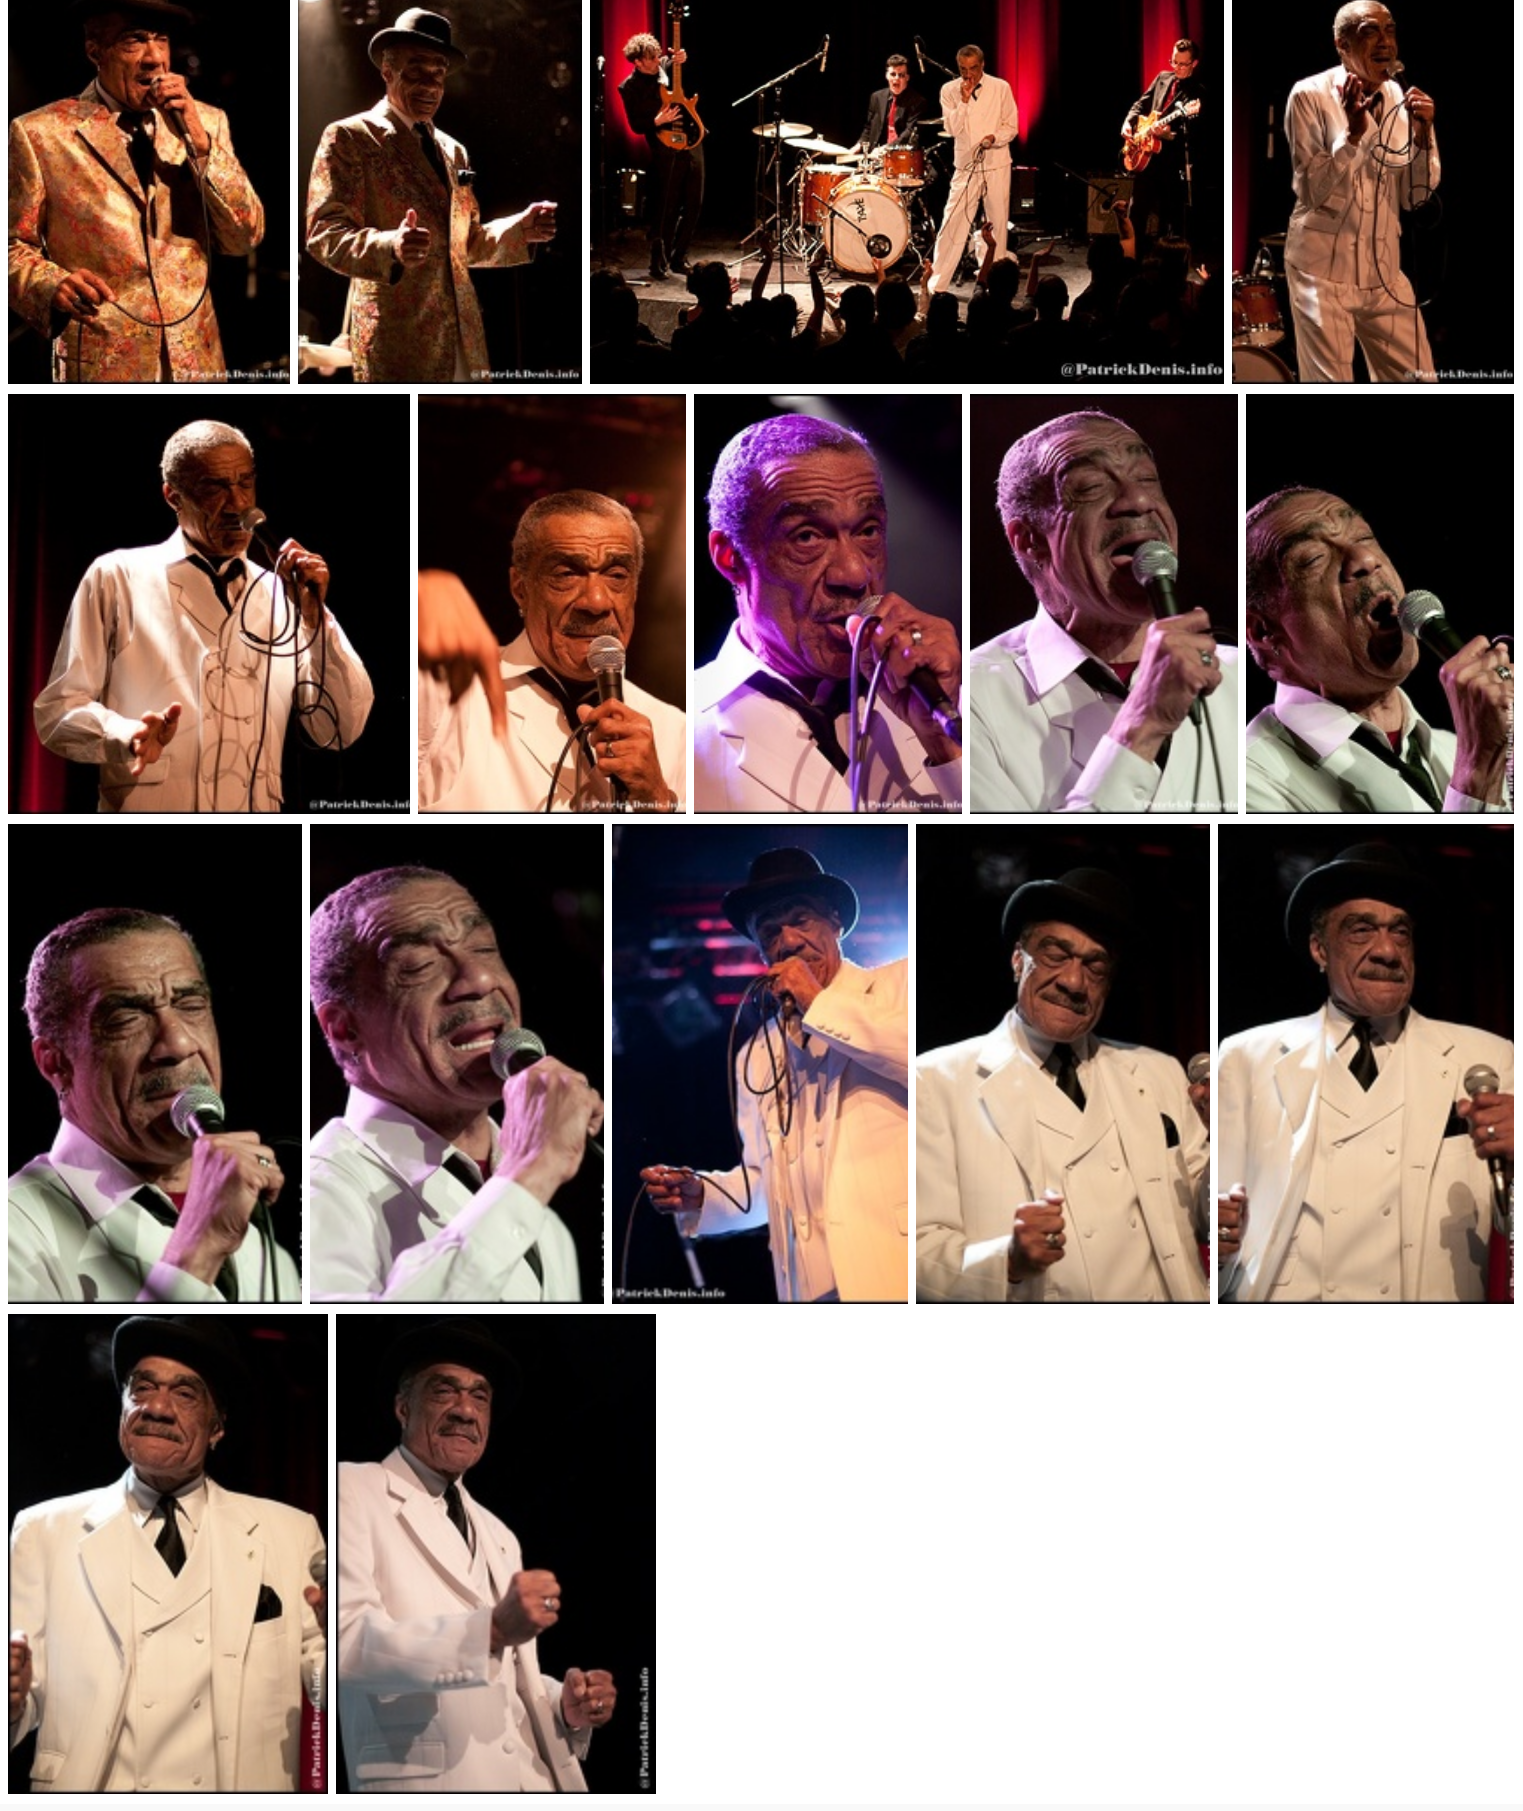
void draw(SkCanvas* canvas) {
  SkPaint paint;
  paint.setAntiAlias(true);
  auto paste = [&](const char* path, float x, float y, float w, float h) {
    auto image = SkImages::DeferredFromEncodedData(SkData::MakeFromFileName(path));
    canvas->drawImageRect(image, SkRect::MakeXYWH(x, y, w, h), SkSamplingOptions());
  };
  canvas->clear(0xffffffff);
  paste("img/1.png", 8, 0, 282, 384);
  paste("img/2.png", 298, 0, 284, 384);
  paste("img/3.png", 590, 0, 634, 384);
  paste("img/4.png", 1232, 0, 282, 384);
  paste("img/5.png", 8, 394, 402, 420);
  paste("img/6.png", 418, 394, 268, 420);
  paste("img/7.png", 694, 394, 268, 420);
  paste("img/8.png", 970, 394, 268, 420);
  paste("img/9.png", 1246, 394, 268, 420);
  paste("img/10.png", 8, 824, 294, 480);
  paste("img/11.png", 310, 824, 294, 480);
  paste("img/12.png", 612, 824, 296, 480);
  paste("img/13.png", 916, 824, 294, 480);
  paste("img/14.png", 1218, 824, 296, 480);
  paste("img/15.png", 8, 1314, 320, 480);
  paste("img/16.png", 336, 1314, 320, 480);
  paint.setColor(0xfff9f9f9);
  canvas->drawRect(SkRect::MakeXYWH(0, 1804, 1523, 7), paint);
}
